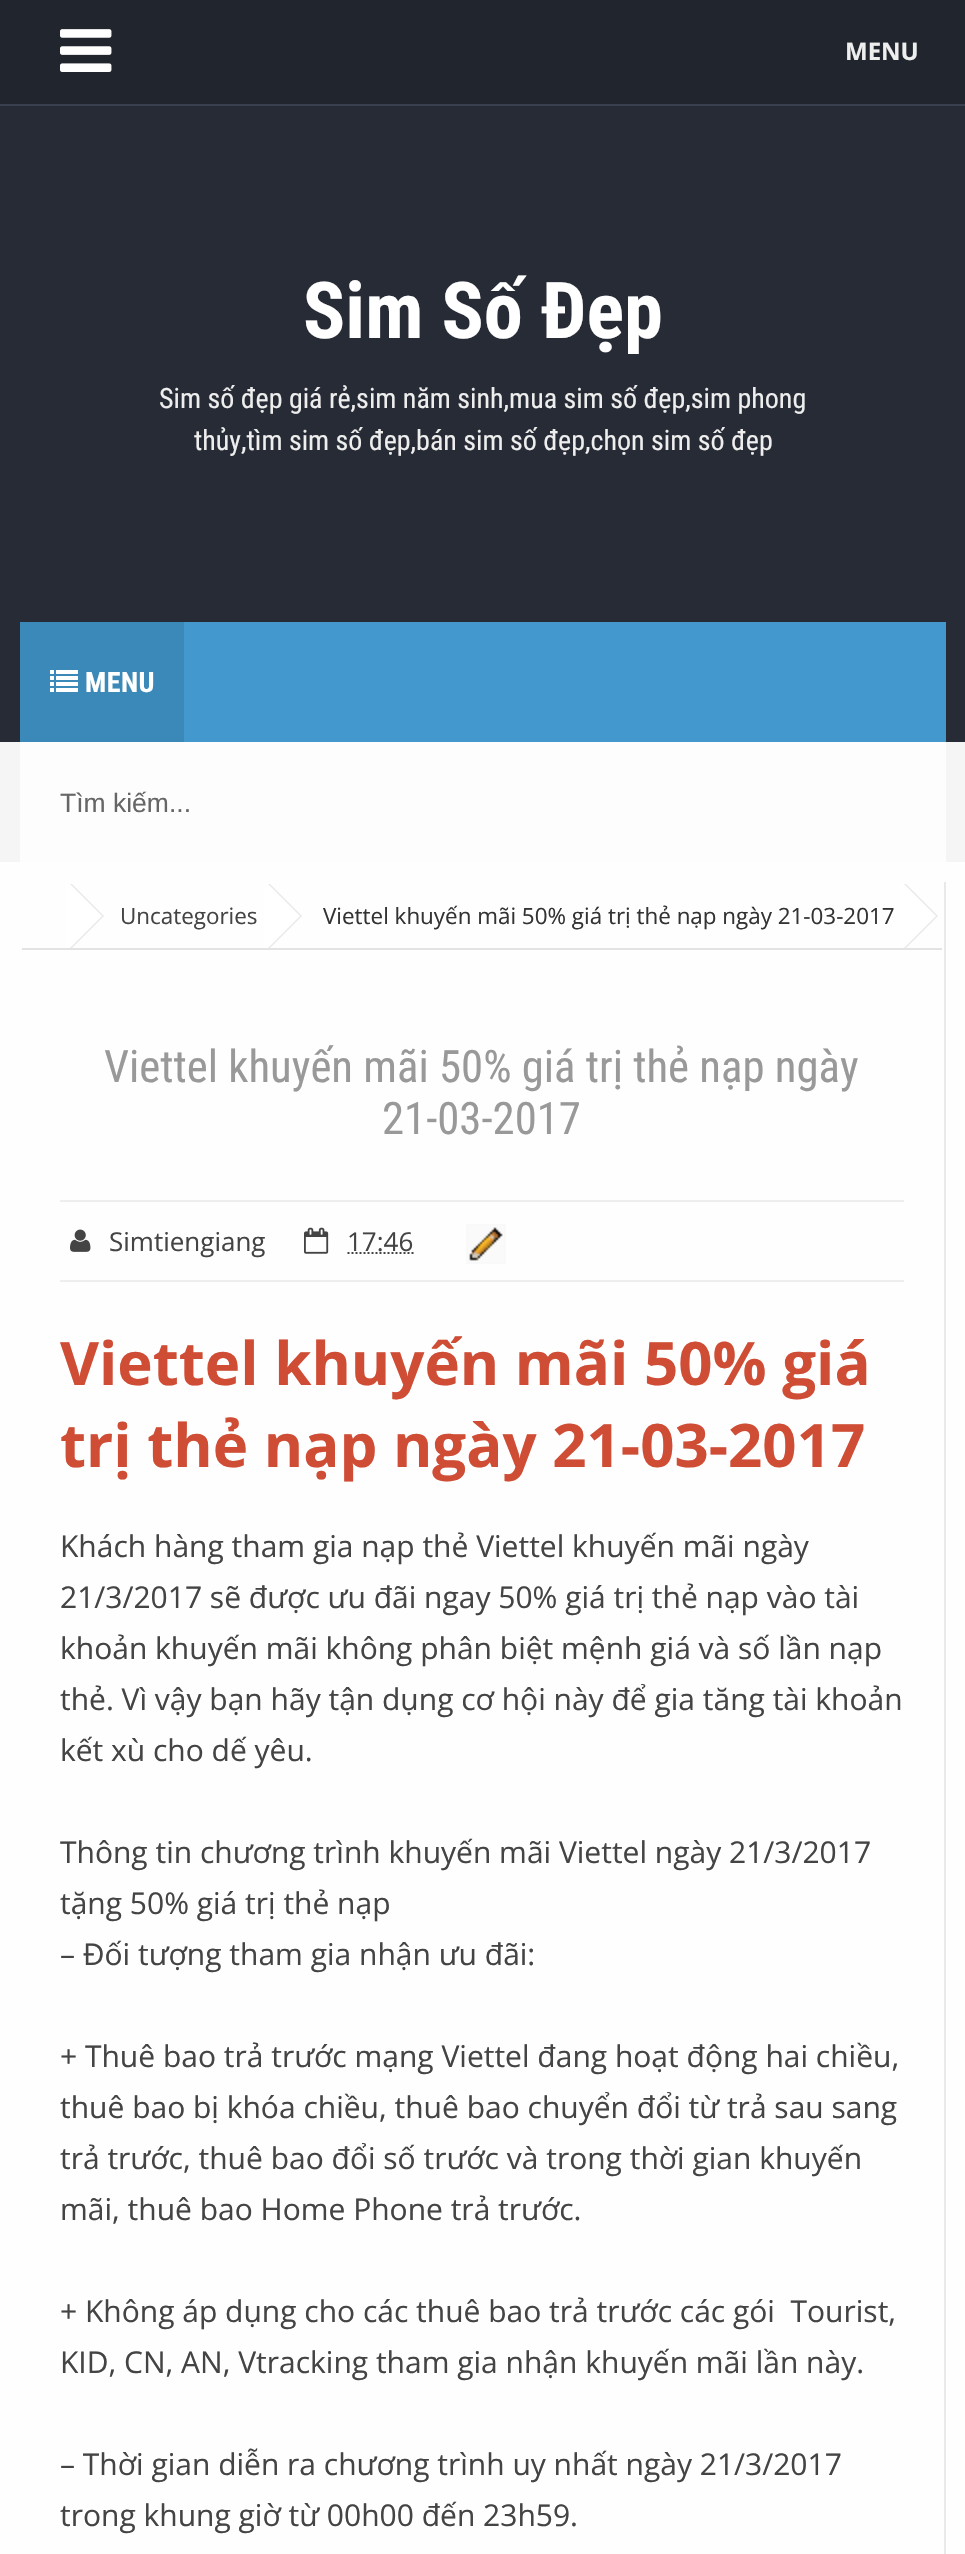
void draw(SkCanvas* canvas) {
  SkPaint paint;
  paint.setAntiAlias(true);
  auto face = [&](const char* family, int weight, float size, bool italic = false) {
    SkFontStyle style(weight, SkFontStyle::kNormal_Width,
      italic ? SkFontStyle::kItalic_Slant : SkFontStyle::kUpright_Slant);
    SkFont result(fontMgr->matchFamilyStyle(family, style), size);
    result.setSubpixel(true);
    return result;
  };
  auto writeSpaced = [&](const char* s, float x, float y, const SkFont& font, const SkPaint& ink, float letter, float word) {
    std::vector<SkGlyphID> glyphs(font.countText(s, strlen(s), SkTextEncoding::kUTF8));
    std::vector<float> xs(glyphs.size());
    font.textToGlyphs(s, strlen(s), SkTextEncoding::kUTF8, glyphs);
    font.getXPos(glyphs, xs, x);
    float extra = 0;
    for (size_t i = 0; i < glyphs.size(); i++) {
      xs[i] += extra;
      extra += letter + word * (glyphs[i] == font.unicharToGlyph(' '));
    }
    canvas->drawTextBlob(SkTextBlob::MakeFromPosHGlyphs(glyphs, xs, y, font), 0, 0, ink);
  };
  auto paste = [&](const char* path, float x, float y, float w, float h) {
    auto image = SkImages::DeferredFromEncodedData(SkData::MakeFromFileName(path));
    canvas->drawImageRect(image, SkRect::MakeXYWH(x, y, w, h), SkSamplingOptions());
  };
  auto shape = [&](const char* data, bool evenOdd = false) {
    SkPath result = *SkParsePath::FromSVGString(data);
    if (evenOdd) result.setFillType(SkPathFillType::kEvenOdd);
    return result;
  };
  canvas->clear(0xfff5f5f5);
  paint.setColor(0xff21252d);
  canvas->drawRect(SkRect::MakeXYWH(0, 0, 965, 104), paint);
  paint.setColor(0xff3a404f);
  canvas->drawRect(SkRect::MakeXYWH(0, 104, 965, 2), paint);
  paste("img/1.png", 60, 29, 52, 43);
  {
    const struct { float x, y, w, h; SkColor color; } items[] = {
      {0, 106, 965, 636, 0xff272b35},
      {184, 622, 762, 120, 0xff4399cd},
      {20, 622, 164, 120, 0xff3a89b9},
    };
    for (auto [x, y, w, h, color] : items) {
      paint.setColor(color);
      canvas->drawRect(SkRect::MakeXYWH(x, y, w, h), paint);
    }
  }
  paste("img/2.png", 50, 670, 28, 22);
  {
    const struct { float x, y, w, h; SkColor color; } items[] = {
      {20, 742, 926, 120, 0xfffdfdfd},
      {0, 862, 965, 1692, 0xfffefefe},
      {944, 882, 2, 1672, 0xffe9e9e9},
      {22, 948, 920, 2, 0xffe3e3e3},
    };
    for (auto [x, y, w, h, color] : items) {
      paint.setColor(color);
      canvas->drawRect(SkRect::MakeXYWH(x, y, w, h), paint);
    }
  }
  paint.setColor(0xffe9e9e9);
  canvas->drawPath(shape("M72 884L104 916L72 948H66V884Z"), paint);
  paint.setColor(0xffffffff);
  canvas->drawPath(shape("M70 884L102 916L70 948H66V884Z"), paint);
  paint.setColor(0xffe9e9e9);
  canvas->drawPath(shape("M270 884L302 916L270 948H264V884Z"), paint);
  paint.setColor(0xffffffff);
  canvas->drawPath(shape("M268 884L300 916L268 948H264V884Z"), paint);
  paint.setColor(0xffe9e9e9);
  canvas->drawPath(shape("M906 884L938 916L906 948H900V884Z"), paint);
  paint.setColor(0xffffffff);
  canvas->drawPath(shape("M904 884L936 916L904 948H900V884Z"), paint);
  paint.setColor(0xffeeeeee);
  canvas->drawRect(SkRect::MakeXYWH(60, 1200, 844, 2), paint);
  canvas->drawRect(SkRect::MakeXYWH(60, 1280, 844, 2), paint);
  paste("img/3.png", 70, 1229, 21, 23);
  paste("img/4.png", 304, 1227, 25, 27);
  paint.setStroke(true);
  paint.setStrokeWidth(2);
  paint.setColor(0xff444444);
  paint.setPathEffect(SkDashPathEffect::Make({{2, 2}}, 0));
  canvas->drawPath(shape("M347.5 1253H413.5"), paint);
  paint.setPathEffect(nullptr);
  paint.setColor(0xfff9f9f9);
  canvas->drawRect(SkRect::MakeXYWH(467, 1225, 38, 38), paint);
  paint.setStroke(false);
  paint.setColor(0xfffafafa);
  canvas->drawRect(SkRect::MakeXYWH(468, 1226, 36, 36), paint);
  paste("img/5.png", 469, 1227, 34, 34);
  auto f0 = face("Open Sans", 700, 24);
  paint.setColor(0xffeeeeee);
  canvas->drawString("MENU", 845, 60, f0, paint);
  auto f1 = face("Roboto Condensed", 700, 78.5f);
  paint.setColor(0xffffffff);
  canvas->drawString("Sim Số Đẹp", 303, 338, f1, paint);
  auto f2 = face("Roboto Condensed", 400, 28);
  paint.setColor(0xffeeeeee);
  canvas->drawString("Sim số đẹp giá rẻ,sim năm sinh,mua sim số đẹp,sim phong", 159, 408, f2, paint);
  canvas->drawString("thủy,tìm sim số đẹp,bán sim số đẹp,chọn sim số đẹp", 194, 450, f2, paint);
  auto f3 = face("Roboto Condensed", 700, 28);
  paint.setColor(0xffffffff);
  writeSpaced("MENU", 85, 692, f3, paint, 0.5f, 0);
  auto f4 = face("Liberation Sans", 400, 26.5f);
  paint.setColor(0xff666666);
  canvas->drawString("Tìm kiếm...", 60, 812, f4, paint);
  auto f5 = face("Open Sans", 400, 22.4f);
  paint.setColor(0xff444444);
  canvas->drawString("Uncategories", 120, 924, f5, paint);
  paint.setColor(0xff333333);
  canvas->drawString("Viettel khuyến mãi 50% giá trị thẻ nạp ngày 21-03-2017", 323, 924, f5, paint);
  auto f6 = face("Roboto Condensed", 400, 44.75f);
  paint.setColor(0xff999999);
  canvas->drawString("Viettel khuyến mãi 50% giá trị thẻ nạp ngày", 104, 1082, f6, paint);
  canvas->drawString("21-03-2017", 382, 1134, f6, paint);
  auto f7 = face("Open Sans", 400, 26);
  paint.setColor(0xff444444);
  canvas->drawString("Simtiengiang", 109, 1251, f7, paint);
  canvas->drawString("17:46", 347, 1251, f7, paint);
  auto f8 = face("Open Sans", 700, 60);
  paint.setColor(0xffcf4d35);
  canvas->drawString("Viettel khuyến mãi 50% giá", 60, 1385, f8, paint);
  canvas->drawString("trị thẻ nạp ngày 21-03-2017", 60, 1467, f8, paint);
  auto f9 = face("Open Sans", 400, 30);
  paint.setColor(0xff444444);
  {
    const struct { const char* s; float x, y; } items[] = {
      {"Khách hàng tham gia nạp thẻ Viettel khuyến mãi ngày", 60, 1557},
      {"21/3/2017 sẽ được ưu đãi ngay 50% giá trị thẻ nạp vào tài", 60, 1608},
      {"khoản khuyến mãi không phân biệt mệnh giá và số lần nạp", 60, 1659},
      {"thẻ. Vì vậy bạn hãy tận dụng cơ hội này để gia tăng tài khoản", 60, 1710},
      {"kết xù cho dế yêu.", 60, 1761},
      {"Thông tin chương trình khuyến mãi Viettel ngày 21/3/2017", 60, 1863},
      {"tặng 50% giá trị thẻ nạp", 60, 1914},
      {"– Đối tượng tham gia nhận ưu đãi:", 60, 1965},
      {"+ Thuê bao trả trước mạng Viettel đang hoạt động hai chiều,", 60, 2067},
      {"thuê bao bị khóa chiều, thuê bao chuyển đổi từ trả sau sang", 60, 2118},
      {"trả trước, thuê bao đổi số trước và trong thời gian khuyến", 60, 2169},
      {"mãi, thuê bao Home Phone trả trước.", 60, 2220},
      {"+ Không áp dụng cho các thuê bao trả trước các gói  Tourist,", 60, 2322},
      {"KID, CN, AN, Vtracking tham gia nhận khuyến mãi lần này.", 60, 2373},
      {"– Thời gian diễn ra chương trình uy nhất ngày 21/3/2017", 60, 2475},
      {"trong khung giờ từ 00h00 đến 23h59.", 60, 2526},
    };
    for (auto [s, x, y] : items) {
      canvas->drawString(s, x, y, f9, paint);
    }
  }
}
